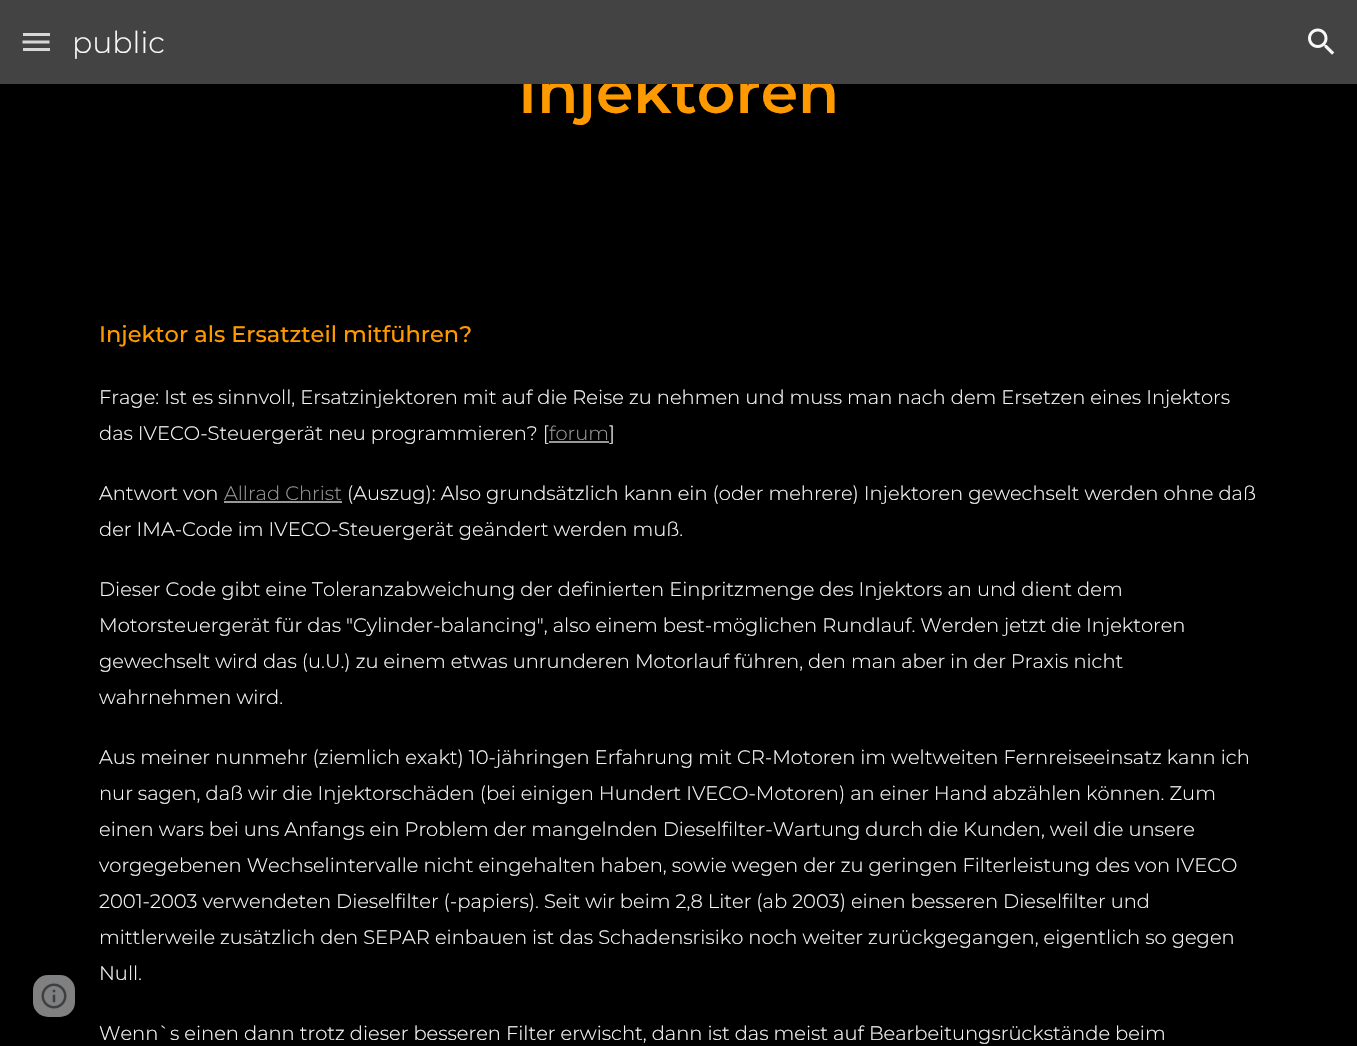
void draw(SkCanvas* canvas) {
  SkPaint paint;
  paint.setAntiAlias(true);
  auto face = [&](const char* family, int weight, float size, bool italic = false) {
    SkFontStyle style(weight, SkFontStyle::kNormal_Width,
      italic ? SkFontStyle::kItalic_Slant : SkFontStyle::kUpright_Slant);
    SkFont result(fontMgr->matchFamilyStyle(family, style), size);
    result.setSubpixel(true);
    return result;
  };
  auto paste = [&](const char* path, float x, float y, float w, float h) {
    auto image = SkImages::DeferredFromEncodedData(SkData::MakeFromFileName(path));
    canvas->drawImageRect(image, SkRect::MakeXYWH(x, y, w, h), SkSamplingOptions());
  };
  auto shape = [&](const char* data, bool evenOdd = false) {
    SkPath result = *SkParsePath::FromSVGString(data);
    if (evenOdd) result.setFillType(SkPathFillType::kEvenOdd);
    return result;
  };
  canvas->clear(0xff000000);
  paint.setColor(0xff808080);
  canvas->drawRoundRect(SkRect::MakeXYWH(33, 975, 42, 42), 15, 15, paint);
  paste("img/2.png", 41, 983, 26, 26);
  paint.setColor(0xff999999);
  canvas->drawRect(SkRect::MakeXYWH(549, 441, 60, 2), paint);
  canvas->drawRect(SkRect::MakeXYWH(224, 501, 118, 2), paint);
  auto f0 = face("Montserrat", 600, 60);
  paint.setColor(0xffff9900);
  canvas->drawString("Injektoren", 518, 113, f0, paint);
  paint.setColor(0xff434343);
  canvas->drawRect(SkRect::MakeXYWH(0, 0, 1357, 84), paint);
  paste("img/1.png", 1308, 28, 27, 27);
  paint.setColor(0xffd8d8d8);
  canvas->drawRect(SkRect::MakeXYWH(23, 48, 27, 3), paint);
  paint.setStroke(true);
  paint.setStrokeWidth(3);
  canvas->drawPath(shape("M22.5 42H49.5"), paint);
  paint.setStroke(false);
  canvas->drawRect(SkRect::MakeXYWH(23, 33, 27, 3), paint);
  auto f1 = face("Montserrat", 300, 30);
  paint.setColor(0xfff9f9f9);
  canvas->drawString("public", 72, 53, f1, paint);
  auto f2 = face("Montserrat", 500, 22.5f);
  paint.setColor(0xffff9900);
  canvas->drawString("Injektor als Ersatzteil mitführen?", 99, 342, f2, paint);
  auto f3 = face("Montserrat", 300, 19.5f);
  paint.setColor(0xfff9f9f9);
  canvas->drawString("Frage: Ist es sinnvoll, Ersatzinjektoren mit auf die Reise zu nehmen und muss man nach dem Ersetzen eines Injektors", 99, 404, f3, paint);
  canvas->drawString("das IVECO-Steuergerät neu programmieren? [", 99, 440, f3, paint);
  paint.setColor(0xff999999);
  canvas->drawString("forum", 549, 440, f3, paint);
  paint.setColor(0xfff9f9f9);
  canvas->drawString("]", 609, 440, f3, paint);
  canvas->drawString("Antwort von", 99, 500, f3, paint);
  paint.setColor(0xff999999);
  canvas->drawString("Allrad Christ", 224, 500, f3, paint);
  paint.setColor(0xfff9f9f9);
  {
    const struct { const char* s; float x, y; } items[] = {
      {"(Auszug): Also grundsätzlich kann ein (oder mehrere) Injektoren gewechselt werden ohne daß", 347, 500},
      {"der IMA-Code im IVECO-Steuergerät geändert werden muß.", 99, 536},
      {"Dieser Code gibt eine Toleranzabweichung der definierten Einpritzmenge des Injektors an und dient dem", 99, 596},
      {"Motorsteuergerät für das \"Cylinder-balancing\", also einem best-möglichen Rundlauf. Werden jetzt die Injektoren", 99, 632},
      {"gewechselt wird das (u.U.) zu einem etwas unrunderen Motorlauf führen, den man aber in der Praxis nicht", 99, 668},
      {"wahrnehmen wird.", 99, 704},
      {"Aus meiner nunmehr (ziemlich exakt) 10-jähringen Erfahrung mit CR-Motoren im weltweiten Fernreiseeinsatz kann ich", 99, 764},
      {"nur sagen, daß wir die Injektorschäden (bei einigen Hundert IVECO-Motoren) an einer Hand abzählen können. Zum", 99, 800},
      {"einen wars bei uns Anfangs ein Problem der mangelnden Dieselfilter-Wartung durch die Kunden, weil die unsere", 99, 836},
      {"vorgegebenen Wechselintervalle nicht eingehalten haben, sowie wegen der zu geringen Filterleistung des von IVECO", 99, 872},
      {"2001-2003 verwendeten Dieselfilter (-papiers). Seit wir beim 2,8 Liter (ab 2003) einen besseren Dieselfilter und", 99, 908},
      {"mittlerweile zusätzlich den SEPAR einbauen ist das Schadensrisiko noch weiter zurückgegangen, eigentlich so gegen", 99, 944},
      {"Null.", 99, 980},
      {"Wenn`s einen dann trotz dieser besseren Filter erwischt, dann ist das meist auf Bearbeitungsrückstände beim", 99, 1040},
    };
    for (auto [s, x, y] : items) {
      canvas->drawString(s, x, y, f3, paint);
    }
  }
}
